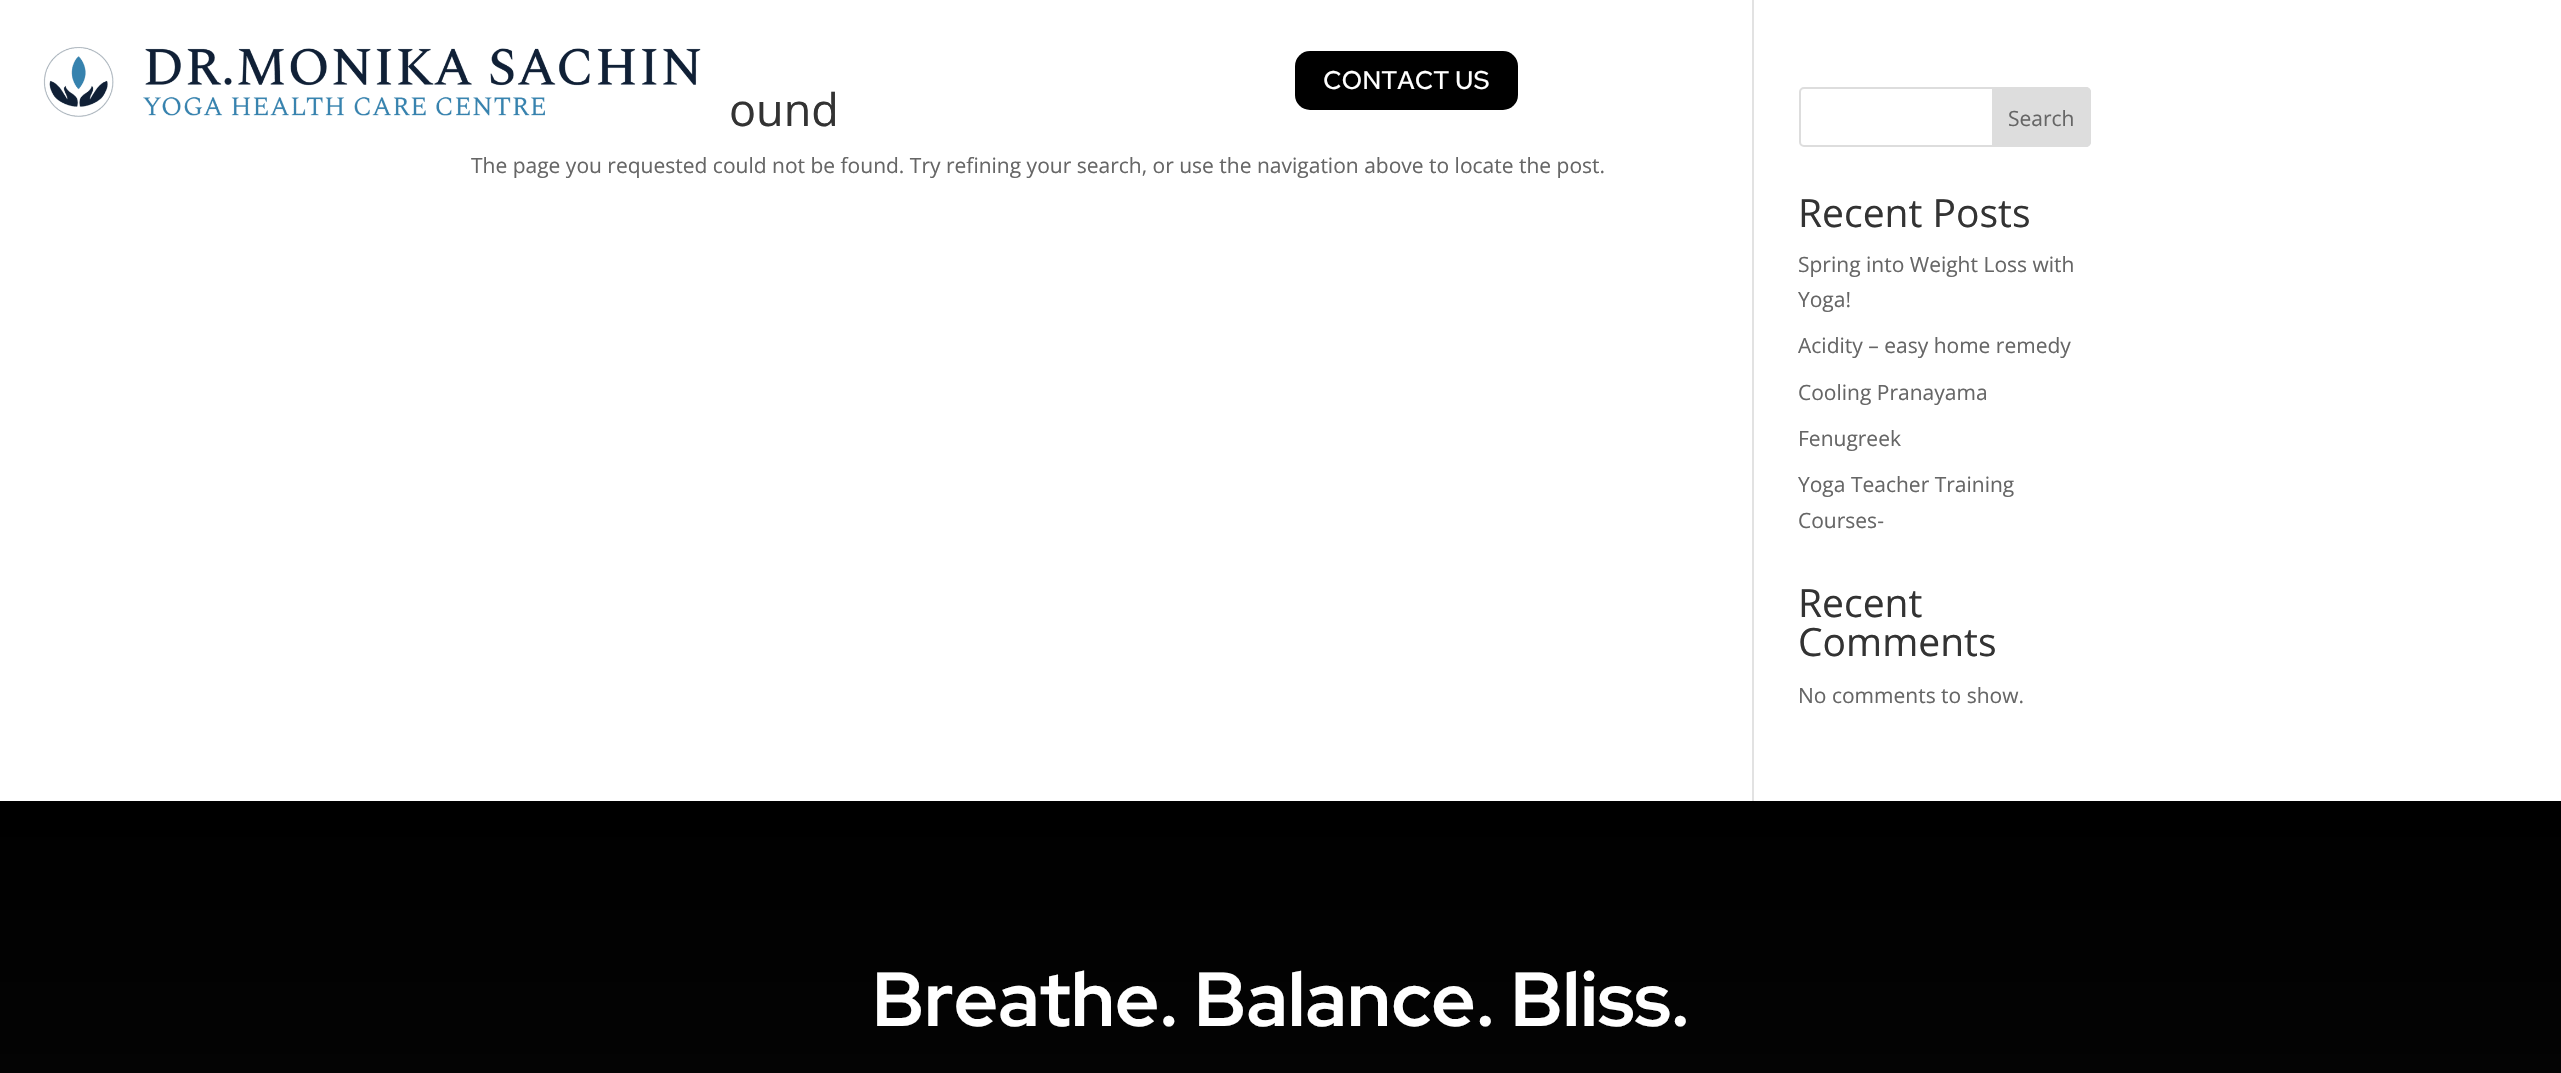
void draw(SkCanvas* canvas) {
  SkPaint paint;
  paint.setAntiAlias(true);
  auto face = [&](const char* family, int weight, float size, bool italic = false) {
    SkFontStyle style(weight, SkFontStyle::kNormal_Width,
      italic ? SkFontStyle::kItalic_Slant : SkFontStyle::kUpright_Slant);
    SkFont result(fontMgr->matchFamilyStyle(family, style), size);
    result.setSubpixel(true);
    return result;
  };
  auto paste = [&](const char* path, float x, float y, float w, float h) {
    auto image = SkImages::DeferredFromEncodedData(SkData::MakeFromFileName(path));
    canvas->drawImageRect(image, SkRect::MakeXYWH(x, y, w, h), SkSamplingOptions());
  };
  auto shape = [&](const char* data, bool evenOdd = false) {
    SkPath result = *SkParsePath::FromSVGString(data);
    if (evenOdd) result.setFillType(SkPathFillType::kEvenOdd);
    return result;
  };
  canvas->clear(0xffffffff);
  paste("img/1.png", 43, 47, 682, 80);
  paint.setColor(0xff000000);
  canvas->drawRoundRect(SkRect::MakeXYWH(1295, 51, 223, 59), 15, 15, paint);
  paint.setColor(0xffe2e2e2);
  canvas->drawRect(SkRect::MakeXYWH(1752, 0, 2, 801), paint);
  paint.setStroke(true);
  paint.setStrokeWidth(2);
  paint.setColor(0xffdddddd);
  canvas->drawRoundRect(SkRect::MakeXYWH(1800, 88, 290, 58), 4, 4, paint);
  paint.setStroke(false);
  canvas->drawPath(shape("M1993 88H2086C2088 88 2090 90 2090 92V142C2090 144 2088 146 2086 146H1993Z"), paint);
  paint.setStroke(true);
  canvas->drawPath(shape("M1993 88H2086C2088 88 2090 90 2090 92V142C2090 144 2088 146 2086 146H1993Z"), paint);
  paint.setStroke(false);
  {
    const SkColor colors[] = {0xff000000, 0xff111111};
    const float stops[] = {0, 1};
    const SkPoint ends[] = {{1281, 801}, {1281, 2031}};
    paint.setShader(SkGradientShader::MakeLinear(ends, colors, stops, 2, SkTileMode::kClamp));
    paint.setAlpha(255);
  }
  canvas->drawRect(SkRect::MakeXYWH(0, 801, 2561, 272), paint);
  auto f0 = face("Red Hat Text", 500, 25.5f);
  paint.setShader(nullptr);
  paint.setColor(0xffffffff);
  canvas->drawString("CONTACT US", 1323, 89, f0, paint);
  auto f1 = face("Open Sans", 400, 45);
  paint.setColor(0xff333333);
  canvas->drawString("ound", 729, 126, f1, paint);
  auto f2 = face("Open Sans", 400, 21);
  paint.setColor(0xff666666);
  canvas->drawString("The page you requested could not be found. Try refining your search, or use the navigation above to locate the post.", 471, 173, f2, paint);
  canvas->drawString("Search", 2008, 126, f2, paint);
  auto f3 = face("Open Sans", 400, 39);
  paint.setColor(0xff333333);
  canvas->drawString("Recent Posts", 1798, 227, f3, paint);
  paint.setColor(0xff666666);
  {
    const struct { const char* s; float x, y; } items[] = {
      {"Spring into Weight Loss with", 1798, 272},
      {"Yoga!", 1798, 307},
      {"Acidity – easy home remedy", 1798, 353},
      {"Cooling Pranayama", 1798, 400},
      {"Fenugreek", 1798, 446},
      {"Yoga Teacher Training", 1798, 492},
      {"Courses-", 1798, 528},
    };
    for (auto [s, x, y] : items) {
      canvas->drawString(s, x, y, f2, paint);
    }
  }
  paint.setColor(0xff333333);
  canvas->drawString("Recent", 1798, 617, f3, paint);
  canvas->drawString("Comments", 1798, 656, f3, paint);
  paint.setColor(0xff666666);
  canvas->drawString("No comments to show.", 1798, 703, f2, paint);
  auto f4 = face("Red Hat Display", 700, 76.5f);
  paint.setColor(0xffffffff);
  canvas->drawString("Breathe. Balance. Bliss.", 872, 1026, f4, paint);
}
